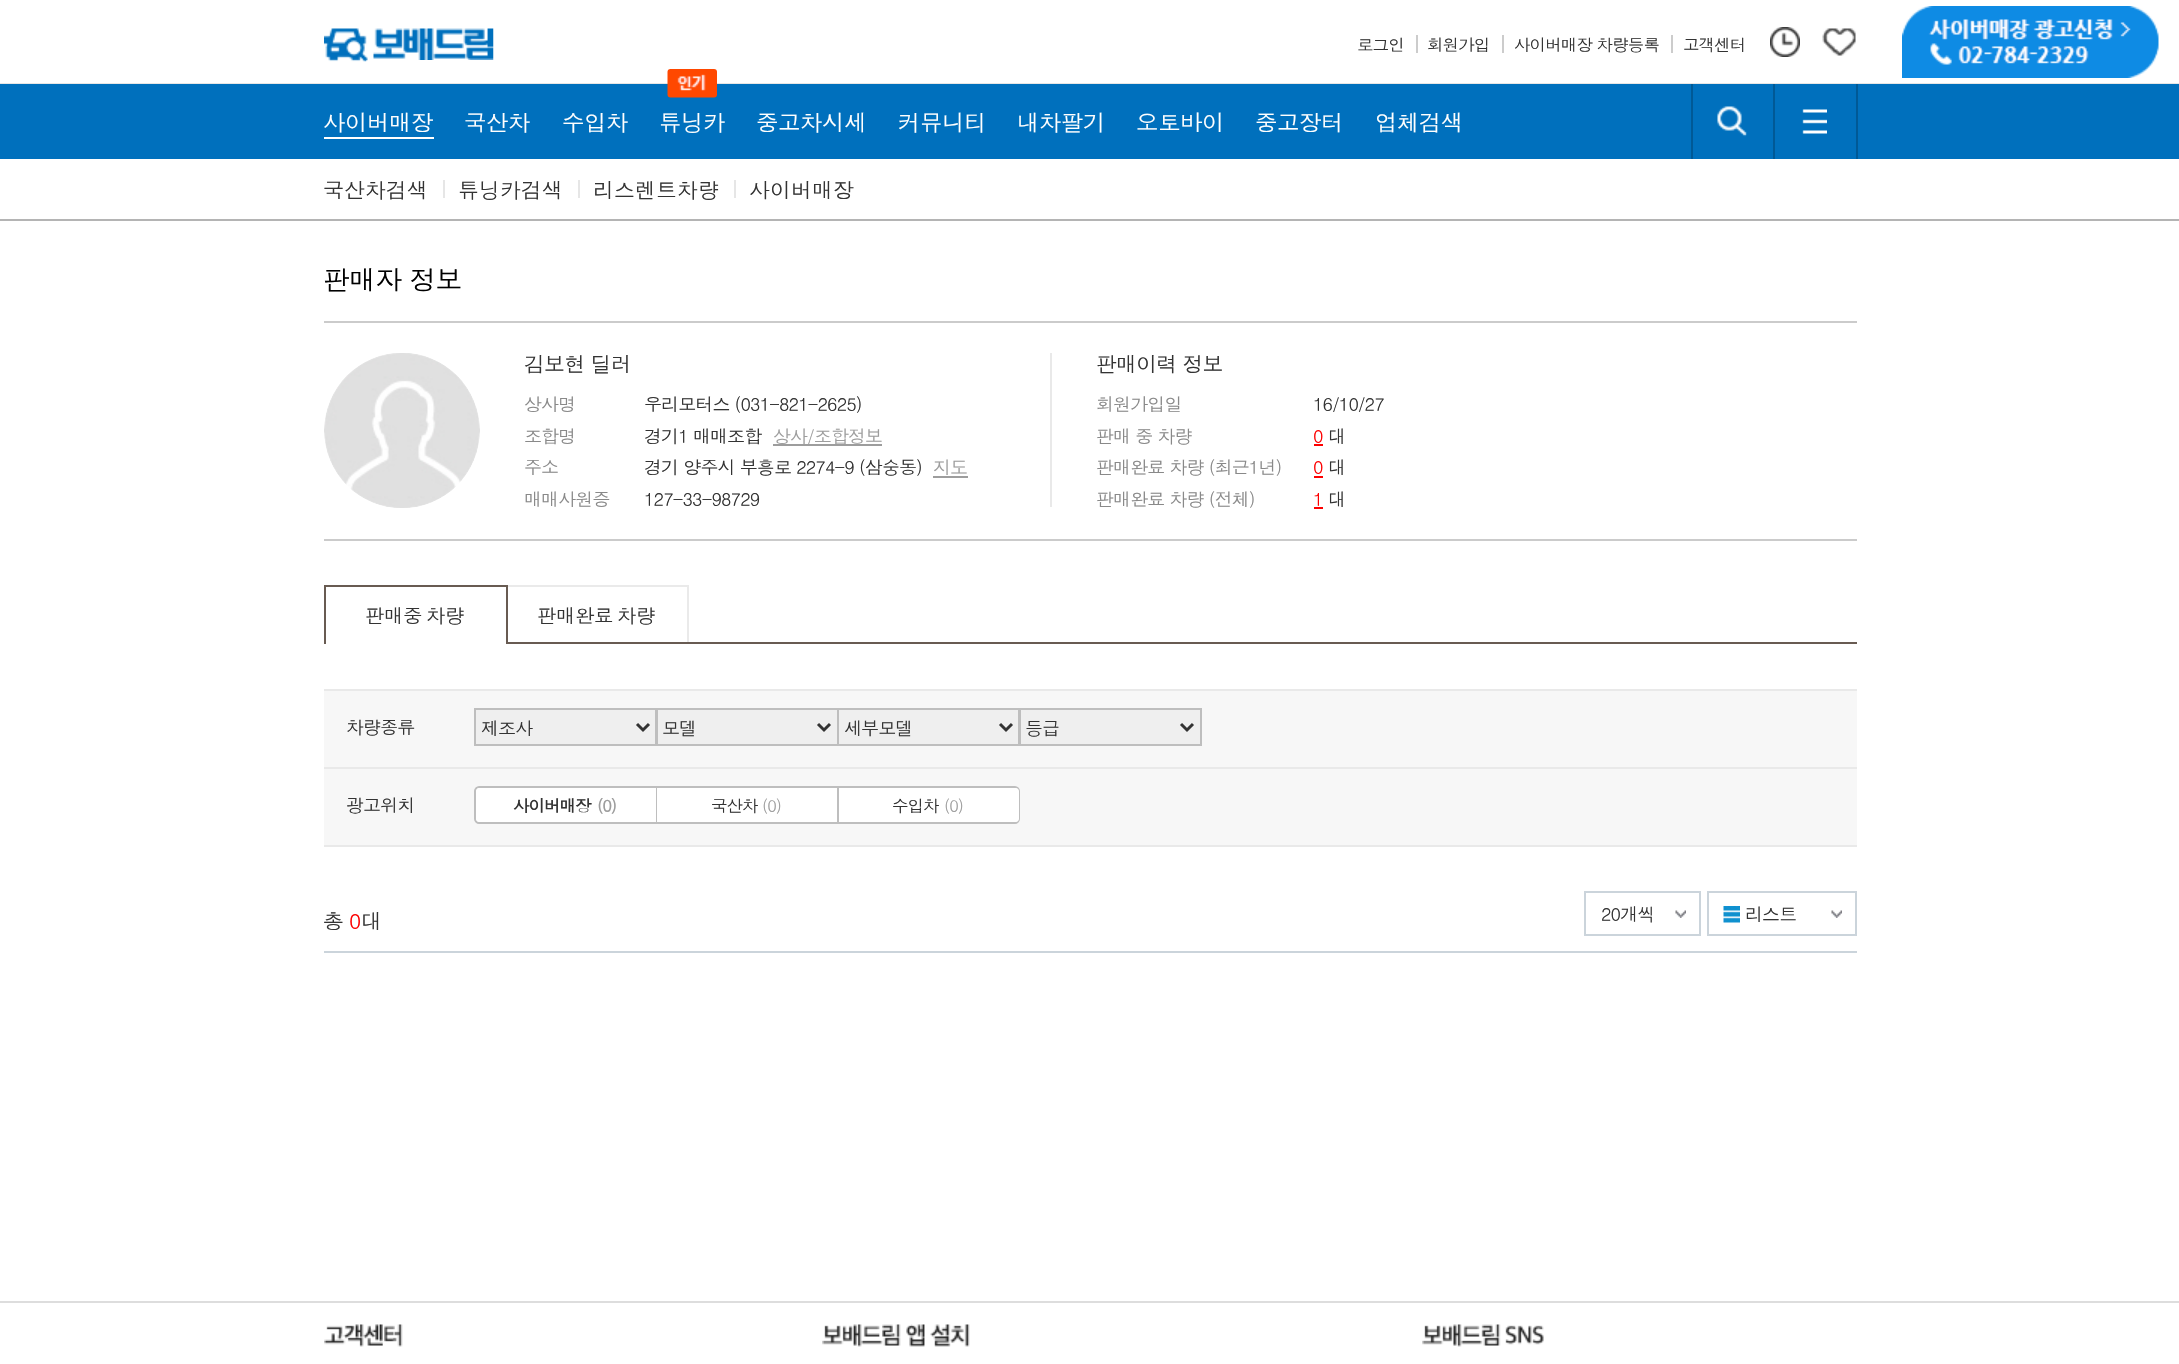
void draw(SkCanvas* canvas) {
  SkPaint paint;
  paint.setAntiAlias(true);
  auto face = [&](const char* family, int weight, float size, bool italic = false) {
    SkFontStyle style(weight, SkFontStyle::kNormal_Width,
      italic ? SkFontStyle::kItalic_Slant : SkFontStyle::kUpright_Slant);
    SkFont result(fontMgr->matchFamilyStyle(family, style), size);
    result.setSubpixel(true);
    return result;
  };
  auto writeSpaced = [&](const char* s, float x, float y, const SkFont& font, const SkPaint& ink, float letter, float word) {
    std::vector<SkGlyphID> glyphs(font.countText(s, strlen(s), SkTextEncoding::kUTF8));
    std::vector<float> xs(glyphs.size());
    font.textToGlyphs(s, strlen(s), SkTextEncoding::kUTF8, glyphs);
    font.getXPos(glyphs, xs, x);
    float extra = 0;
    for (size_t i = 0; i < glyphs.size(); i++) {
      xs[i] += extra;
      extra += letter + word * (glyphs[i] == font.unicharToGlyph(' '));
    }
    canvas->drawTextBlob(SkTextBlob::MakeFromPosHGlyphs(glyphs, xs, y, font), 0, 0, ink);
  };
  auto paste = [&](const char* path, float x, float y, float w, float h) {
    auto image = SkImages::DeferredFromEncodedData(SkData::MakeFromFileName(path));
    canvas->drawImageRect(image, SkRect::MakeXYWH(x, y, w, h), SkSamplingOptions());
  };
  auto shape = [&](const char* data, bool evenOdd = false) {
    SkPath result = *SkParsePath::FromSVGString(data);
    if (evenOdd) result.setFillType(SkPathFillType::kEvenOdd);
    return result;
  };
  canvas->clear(0xffffffff);
  paint.setColor(0xffe6e6e6);
  canvas->drawRect(SkRect::MakeXYWH(0, 83, 2179, 1), paint);
  paste("img/1.png", 324, 28, 44, 34);
  paste("img/2.png", 373, 28, 121, 32);
  {
    const struct { float x, y, w, h; SkColor color; } items[] = {
      {1416, 35, 2, 18, 0xffcccccc},
      {1502, 35, 2, 18, 0xffcccccc},
      {1671, 35, 2, 18, 0xffcccccc},
    };
    for (auto [x, y, w, h, color] : items) {
      paint.setColor(color);
      canvas->drawRect(SkRect::MakeXYWH(x, y, w, h), paint);
    }
  }
  paste("img/3.png", 1770, 27, 30, 30);
  paste("img/4.png", 1822, 28, 34, 28);
  paste("img/5.png", 1902, 6, 257, 72);
  paint.setColor(0xff0070bd);
  canvas->drawRect(SkRect::MakeXYWH(0, 84, 2179, 75), paint);
  paint.setColor(0xffffffff);
  canvas->drawRect(SkRect::MakeXYWH(324, 137, 110, 2), paint);
  paste("img/6.png", 667, 69, 50, 29);
  paint.setColor(0xff005996);
  canvas->drawRect(SkRect::MakeXYWH(1773, 84, 2, 75), paint);
  canvas->drawRect(SkRect::MakeXYWH(1691, 84, 2, 75), paint);
  paste("img/7.png", 1717, 106, 30, 31);
  canvas->drawRect(SkRect::MakeXYWH(1856, 84, 2, 75), paint);
  paste("img/8.png", 1802, 109, 25, 25);
  {
    const struct { float x, y, w, h; SkColor color; } items[] = {
      {0, 219, 2179, 2, 0xffb4b4b4},
      {443, 180, 2, 18, 0xffe6e6e6},
      {578, 180, 2, 18, 0xffe6e6e6},
      {734, 180, 2, 18, 0xffe6e6e6},
      {324, 321, 1533, 2, 0xffcbcbcb},
      {324, 539, 1533, 2, 0xffcbcbcb},
    };
    for (auto [x, y, w, h, color] : items) {
      paint.setColor(color);
      canvas->drawRect(SkRect::MakeXYWH(x, y, w, h), paint);
    }
  }
  paste("img/9.png", 324, 353, 156, 155);
  {
    const struct { float x, y, w, h; SkColor color; } items[] = {
      {773, 444, 109, 2, 0xff9d9d9d},
      {933, 476, 35, 2, 0xff9d9d9d},
      {1050, 353, 2, 154, 0xffe9e9e9},
      {1314, 444, 9, 2, 0xfffd0000},
      {1314, 476, 9, 2, 0xfffd0000},
      {1314, 507, 9, 2, 0xfffd0000},
      {506, 585, 183, 2, 0xffeaeaea},
      {324, 585, 183, 2, 0xff685b52},
      {506, 585, 2, 59, 0xff685b52},
      {324, 585, 2, 59, 0xff685b52},
      {687, 585, 2, 59, 0xffeaeaea},
      {508, 642, 1349, 2, 0xff685b52},
      {324, 691, 1533, 154, 0xfff7f7f7},
      {324, 689, 1533, 2, 0xffe9e9e9},
      {324, 767, 1533, 2, 0xffe9e9e9},
    };
    for (auto [x, y, w, h, color] : items) {
      paint.setColor(color);
      canvas->drawRect(SkRect::MakeXYWH(x, y, w, h), paint);
    }
  }
  paint.setColor(0xffefefef);
  canvas->drawRect(SkRect::MakeXYWH(475, 709, 181, 36), paint);
  paint.setStroke(true);
  paint.setStrokeWidth(2);
  paint.setColor(0xffbebebe);
  canvas->drawRect(SkRect::MakeXYWH(475, 709, 181, 36), paint);
  paint.setStrokeWidth(3);
  paint.setColor(0xff333333);
  canvas->drawPath(shape("M637 724L643 730L649 724"), paint);
  paint.setStroke(false);
  paint.setColor(0xffefefef);
  canvas->drawRect(SkRect::MakeXYWH(657, 709, 181, 36), paint);
  paint.setStroke(true);
  paint.setStrokeWidth(2);
  paint.setColor(0xffbebebe);
  canvas->drawRect(SkRect::MakeXYWH(657, 709, 181, 36), paint);
  paint.setStrokeWidth(3);
  paint.setColor(0xff333333);
  canvas->drawPath(shape("M818 724L824 730L830 724"), paint);
  paint.setStroke(false);
  paint.setColor(0xffefefef);
  canvas->drawRect(SkRect::MakeXYWH(838, 709, 181, 36), paint);
  paint.setStroke(true);
  paint.setStrokeWidth(2);
  paint.setColor(0xffbebebe);
  canvas->drawRect(SkRect::MakeXYWH(838, 709, 181, 36), paint);
  paint.setStrokeWidth(3);
  paint.setColor(0xff333333);
  canvas->drawPath(shape("M1000 724L1006 730L1012 724"), paint);
  paint.setStroke(false);
  paint.setColor(0xffefefef);
  canvas->drawRect(SkRect::MakeXYWH(1020, 709, 181, 36), paint);
  paint.setStroke(true);
  paint.setStrokeWidth(2);
  paint.setColor(0xffbebebe);
  canvas->drawRect(SkRect::MakeXYWH(1020, 709, 181, 36), paint);
  paint.setStrokeWidth(3);
  paint.setColor(0xff333333);
  canvas->drawPath(shape("M1181 724L1187 730L1193 724"), paint);
  paint.setStroke(false);
  paint.setColor(0xffe9e9e9);
  canvas->drawRect(SkRect::MakeXYWH(324, 845, 1533, 2), paint);
  paint.setStroke(true);
  paint.setStrokeWidth(2);
  paint.setColor(0xffbebebe);
  canvas->drawPath(shape("M479 787H656V823H479C477 823 475 821 475 819V791C475 789 477 787 479 787Z"), paint);
  paint.setStroke(false);
  paint.setColor(0xffffffff);
  canvas->drawPath(shape("M479 788H656V822H479C477.5 822 476 820.5 476 819V791C476 789.5 477.5 788 479 788Z"), paint);
  paint.setStroke(true);
  paint.setColor(0xffbebebe);
  canvas->drawRect(SkRect::MakeXYWH(657, 787, 181, 36), paint);
  paint.setStroke(false);
  paint.setColor(0xffffffff);
  canvas->drawRect(SkRect::MakeXYWH(657, 788, 180, 34), paint);
  paint.setStroke(true);
  paint.setColor(0xffbebebe);
  canvas->drawPath(shape("M838 787H1015C1017 787 1019 789 1019 791V819C1019 821 1017 823 1015 823H838Z"), paint);
  paint.setStroke(false);
  paint.setColor(0xffffffff);
  canvas->drawPath(shape("M839 788H1016C1017.5 788 1019 789.5 1019 791V819C1019 820.5 1017.5 822 1016 822H839Z"), paint);
  paint.setColor(0xffcbd4db);
  canvas->drawRect(SkRect::MakeXYWH(324, 951, 1533, 2), paint);
  paint.setStroke(true);
  canvas->drawRect(SkRect::MakeXYWH(1585, 892, 115, 43), paint);
  paste("img/10.png", 1675, 910, 11, 8);
  canvas->drawRect(SkRect::MakeXYWH(1708, 892, 148, 43), paint);
  paste("img/11.png", 1723, 906, 17, 17);
  paste("img/10.png", 1831, 910, 11, 8);
  paint.setStroke(false);
  paint.setColor(0xffdddddd);
  canvas->drawRect(SkRect::MakeXYWH(0, 1301, 2179, 2), paint);
  paste("img/12.png", 324, 1324, 79, 23);
  paste("img/13.png", 822, 1324, 148, 23);
  paste("img/14.png", 1422, 1324, 122, 23);
  auto f0 = face("Dotum", 400, 16.5f);
  paint.setColor(0xff333333);
  {
    const struct { const char* s; float x, y; } items[] = {
      {"로그인", 1357, 51},
      {"회원가입", 1427, 51},
      {"사이버매장 차량등록", 1514, 51},
      {"고객센터", 1683, 51},
    };
    for (auto [s, x, y] : items) {
      writeSpaced(s, x, y, f0, paint, -0.9f, 0);
    }
  }
  auto f1 = face("Dotum", 400, 22.5f);
  paint.setColor(0xffffffff);
  {
    const struct { const char* s; float x, y; } items[] = {
      {"사이버매장", 323, 131},
      {"국산차", 464, 131},
      {"수입차", 562, 131},
      {"튜닝카", 659, 131},
      {"중고차시세", 756, 131},
      {"커뮤니티", 898, 131},
      {"내차팔기", 1017, 131},
      {"오토바이", 1136, 131},
      {"중고장터", 1255, 131},
      {"업체검색", 1375, 131},
    };
    for (auto [s, x, y] : items) {
      writeSpaced(s, x, y, f1, paint, -0.5f, 0);
    }
  }
  auto f2 = face("Dotum", 400, 21);
  paint.setColor(0xff333333);
  {
    const struct { const char* s; float x, y; } items[] = {
      {"국산차검색", 323, 198},
      {"튜닝카검색", 458, 198},
      {"리스렌트차량", 593, 198},
      {"사이버매장", 749, 198},
    };
    for (auto [s, x, y] : items) {
      canvas->drawString(s, x, y, f2, paint);
    }
  }
  auto f3 = face("Dotum", 400, 27);
  paint.setColor(0xff000000);
  writeSpaced("판매자 정보", 323, 290, f3, paint, -0.9f, 0);
  paint.setColor(0xff333333);
  writeSpaced("김보현 딜러", 524, 372, f2, paint, -0.9f, 0);
  auto f4 = face("Dotum", 400, 18);
  paint.setColor(0xff898989);
  writeSpaced("상사명", 524, 411, f4, paint, -0.9f, 0);
  paint.setColor(0xff333333);
  writeSpaced("우리모터스 (031-821-2625)", 644, 411, f4, paint, -0.9f, 0);
  paint.setColor(0xff898989);
  writeSpaced("조합명", 524, 443, f4, paint, -0.9f, 0);
  paint.setColor(0xff333333);
  writeSpaced("경기1 매매조합", 644, 443, f4, paint, -0.9f, 0);
  paint.setColor(0xff9d9d9d);
  writeSpaced("상사/조합정보", 773, 443, f4, paint, -0.9f, 0);
  paint.setColor(0xff898989);
  writeSpaced("주소", 524, 474, f4, paint, -0.9f, 0);
  paint.setColor(0xff333333);
  writeSpaced("경기 양주시 부흥로 2274-9 (삼숭동)", 644, 474, f4, paint, -0.9f, 0);
  paint.setColor(0xff9d9d9d);
  writeSpaced("지도", 933, 474, f4, paint, -0.9f, 0);
  paint.setColor(0xff898989);
  writeSpaced("매매사원증", 524, 506, f4, paint, -0.9f, 0);
  paint.setColor(0xff333333);
  writeSpaced("127-33-98729", 644, 506, f4, paint, -0.9f, 0);
  writeSpaced("판매이력 정보", 1096, 372, f2, paint, -0.9f, 0);
  paint.setColor(0xff898989);
  writeSpaced("회원가입일", 1096, 411, f4, paint, -0.9f, 0);
  paint.setColor(0xff333333);
  writeSpaced("16/10/27", 1313, 411, f4, paint, -0.9f, 0);
  paint.setColor(0xff898989);
  writeSpaced("판매 중 차량", 1096, 443, f4, paint, -0.9f, 0);
  paint.setColor(0xfffd0000);
  writeSpaced("0", 1313, 443, f4, paint, -0.9f, 0);
  paint.setColor(0xff333333);
  writeSpaced("대", 1328, 443, f4, paint, -0.9f, 0);
  paint.setColor(0xff898989);
  writeSpaced("판매완료 차량 (최근1년)", 1096, 474, f4, paint, -0.9f, 0);
  paint.setColor(0xfffd0000);
  writeSpaced("0", 1313, 474, f4, paint, -0.9f, 0);
  paint.setColor(0xff333333);
  writeSpaced("대", 1328, 474, f4, paint, -0.9f, 0);
  paint.setColor(0xff898989);
  writeSpaced("판매완료 차량 (전체)", 1096, 506, f4, paint, -0.9f, 0);
  paint.setColor(0xfffd0000);
  writeSpaced("1", 1313, 506, f4, paint, -0.9f, 0);
  paint.setColor(0xff333333);
  writeSpaced("대", 1328, 506, f4, paint, -0.9f, 0);
  auto f5 = face("Dotum", 400, 19.5f);
  writeSpaced("판매중 차량", 365, 623, f5, paint, -0.5f, -2);
  writeSpaced("판매완료 차량", 537, 623, f5, paint, -0.5f, -2);
  {
    const struct { const char* s; float x, y; } items[] = {
      {"차량종류", 346, 734},
      {"제조사", 481, 735},
      {"모델", 662, 735},
      {"세부모델", 844, 735},
      {"등급", 1025, 735},
      {"광고위치", 346, 812},
    };
    for (auto [s, x, y] : items) {
      writeSpaced(s, x, y, f4, paint, -0.9f, 0);
    }
  }
  auto f6 = face("Dotum", 700, 16.5f);
  writeSpaced("사이버매장", 513, 812, f6, paint, -1, 0);
  paint.setColor(0xff9d9d9d);
  writeSpaced("(0)", 597, 812, f6, paint, -1, 0);
  paint.setColor(0xff333333);
  writeSpaced("국산차", 711, 812, f0, paint, -1, 0);
  paint.setColor(0xff9d9d9d);
  writeSpaced("(0)", 762, 812, f0, paint, -1, 0);
  paint.setColor(0xff333333);
  writeSpaced("수입차", 892, 812, f0, paint, -1, 0);
  paint.setColor(0xff9d9d9d);
  writeSpaced("(0)", 944, 812, f0, paint, -1, 0);
  paint.setColor(0xff333333);
  writeSpaced("총", 323, 929, f2, paint, -0.9f, 0);
  paint.setColor(0xfffd0000);
  writeSpaced("0", 349, 929, f2, paint, -0.9f, 0);
  paint.setColor(0xff333333);
  writeSpaced("대", 361, 929, f2, paint, -0.9f, 0);
  writeSpaced("20개씩", 1601, 921, f4, paint, -0.9f, 0);
  writeSpaced("리스트", 1745, 921, f4, paint, -0.9f, 0);
}
